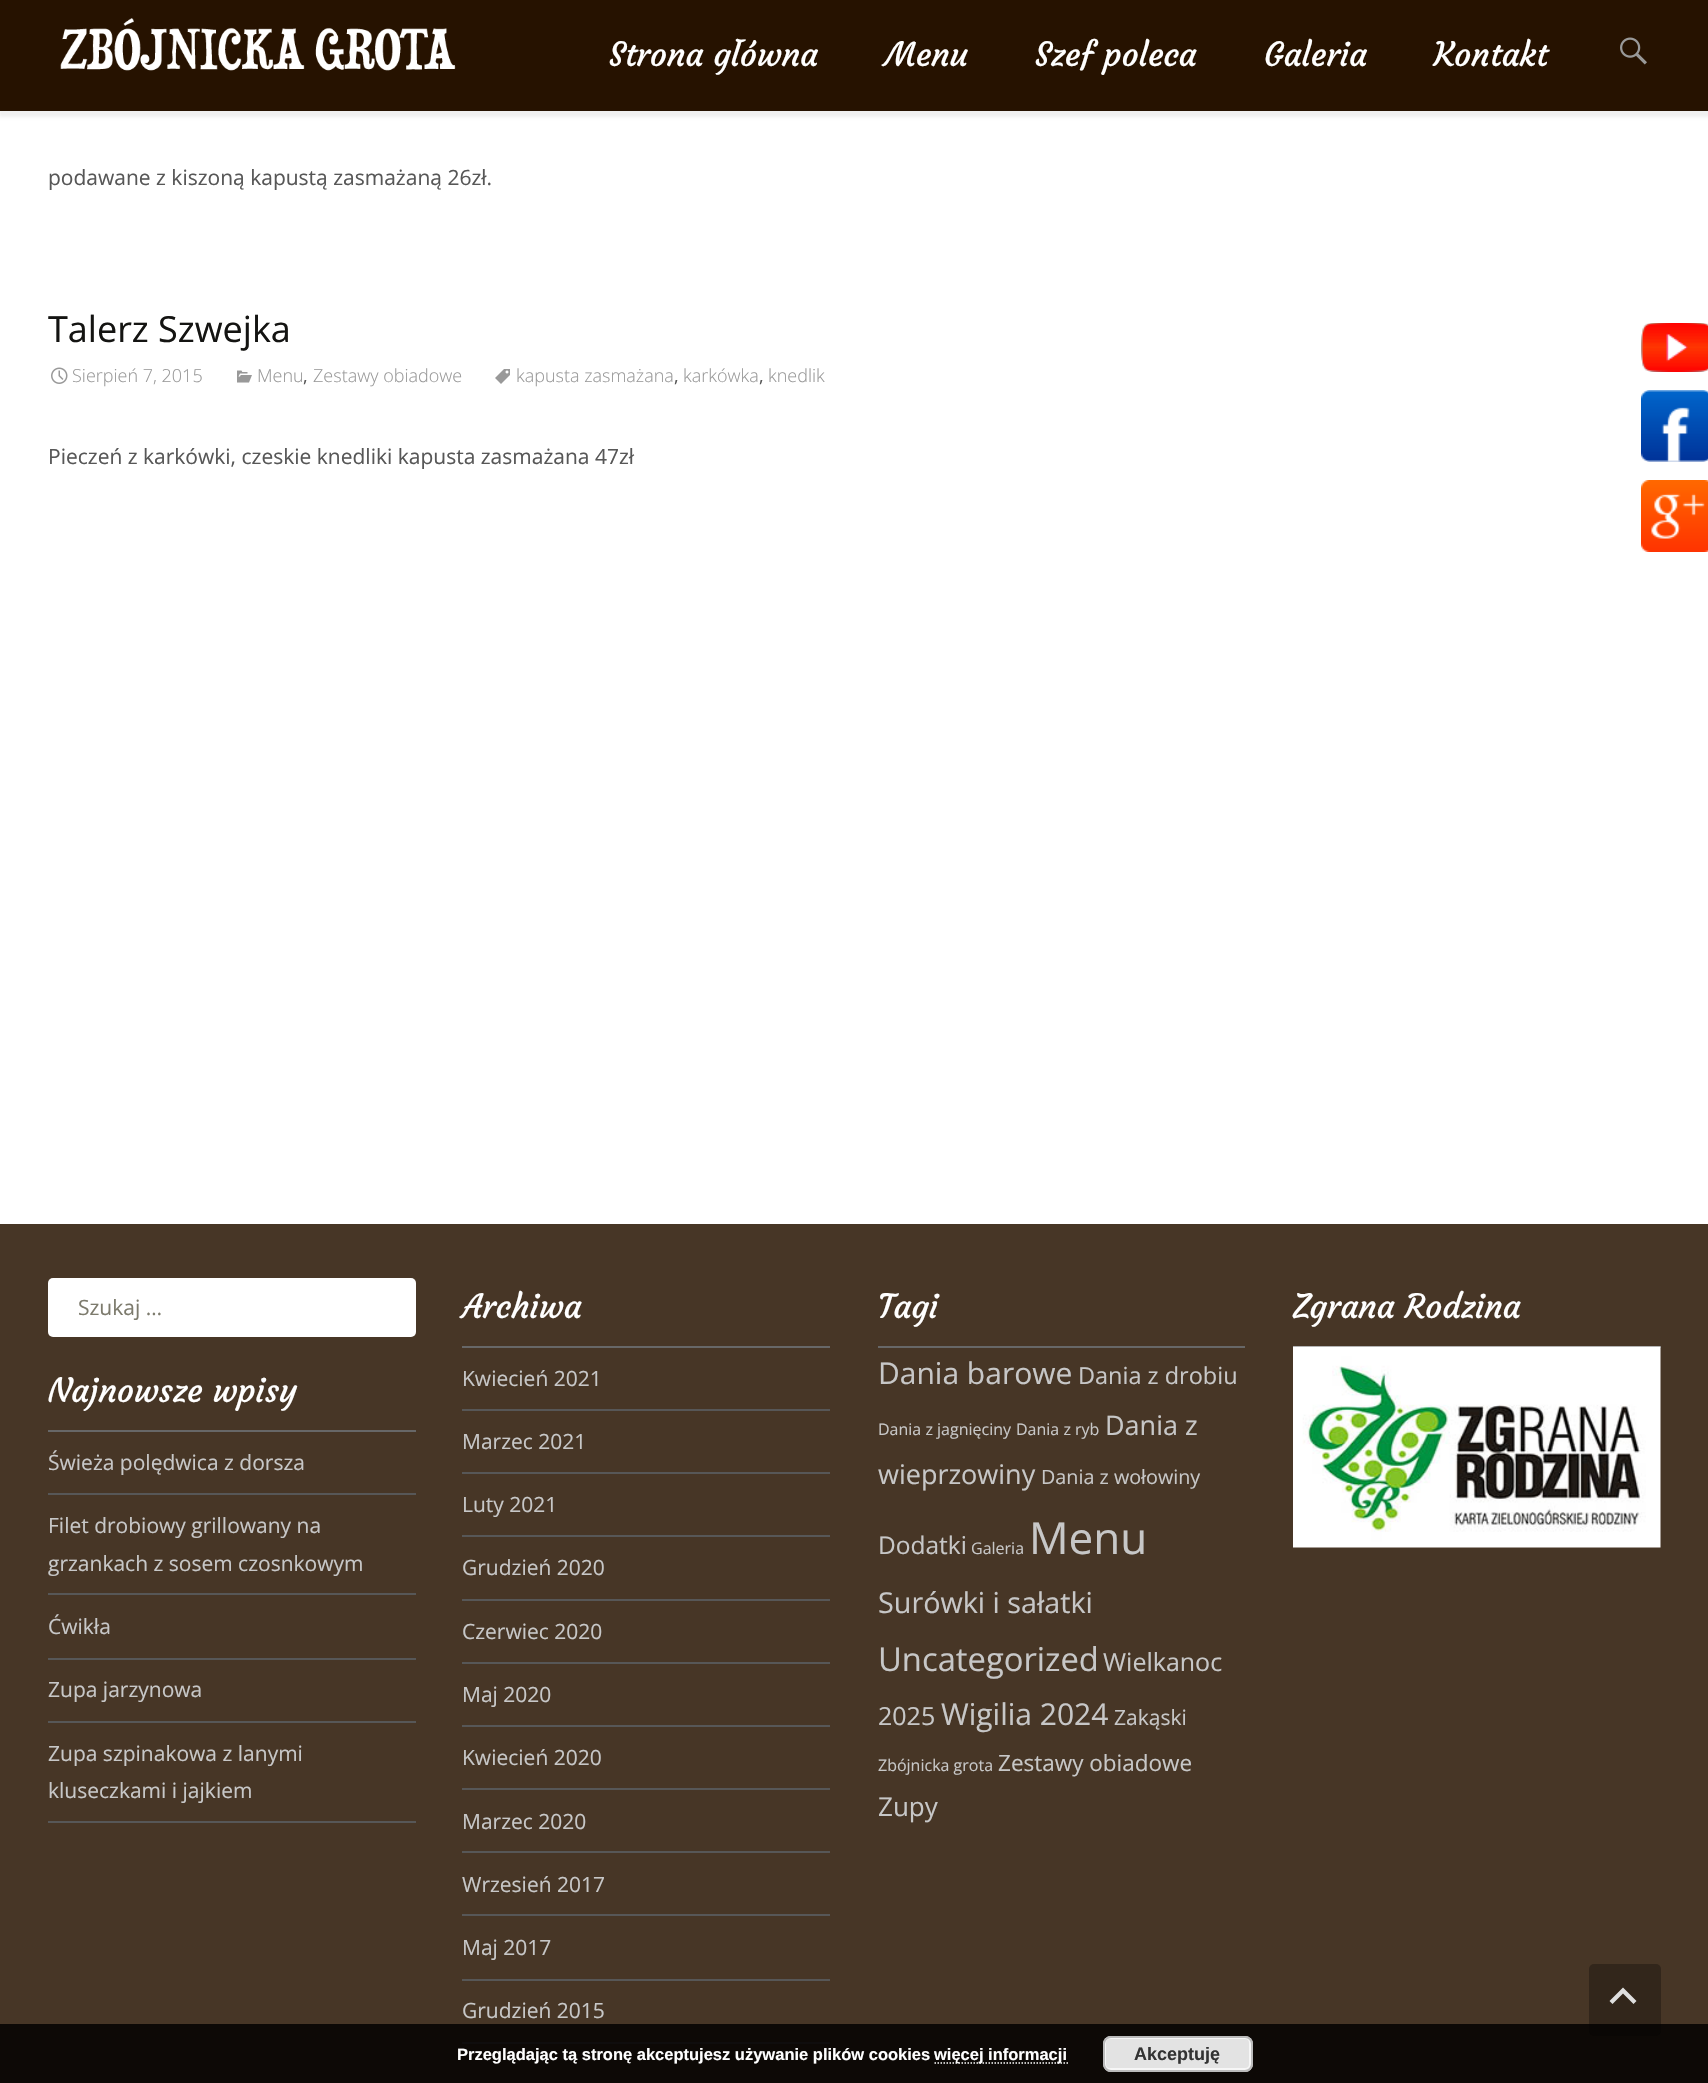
void draw(SkCanvas* canvas) {
  SkPaint paint;
  paint.setAntiAlias(true);
  auto face = [&](const char* family, int weight, float size, bool italic = false) {
    SkFontStyle style(weight, SkFontStyle::kNormal_Width,
      italic ? SkFontStyle::kItalic_Slant : SkFontStyle::kUpright_Slant);
    SkFont result(fontMgr->matchFamilyStyle(family, style), size);
    result.setSubpixel(true);
    return result;
  };
  auto paste = [&](const char* path, float x, float y, float w, float h) {
    auto image = SkImages::DeferredFromEncodedData(SkData::MakeFromFileName(path));
    canvas->drawImageRect(image, SkRect::MakeXYWH(x, y, w, h), SkSamplingOptions());
  };
  auto shape = [&](const char* data, bool evenOdd = false) {
    SkPath result = *SkParsePath::FromSVGString(data);
    if (evenOdd) result.setFillType(SkPathFillType::kEvenOdd);
    return result;
  };
  canvas->clear(0xffffffff);
  paint.setColor(0x0f000000);
  paint.setMaskFilter(SkMaskFilter::MakeBlur(kNormal_SkBlurStyle, 1.5f));
  canvas->drawRect(SkRect::MakeXYWH(-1, 3, 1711, 114), paint);
  paint.setMaskFilter(nullptr);
  paint.setColor(0xff261200);
  canvas->drawRect(SkRect::MakeXYWH(0, 0, 1708, 111), paint);
  paste("img/1.png", 60, 18, 396, 53);
  paste("img/2.png", 1620, 37, 27, 28);
  paste("img/3.png", 51, 367, 17, 17);
  paste("img/4.png", 237, 370, 15, 13);
  paste("img/5.png", 495, 369, 15, 15);
  paste("img/6.png", 1641, 323, 67, 49);
  paste("img/7.png", 1641, 390, 67, 72);
  paste("img/8.png", 1641, 480, 67, 72);
  paint.setColor(0xff473626);
  canvas->drawRect(SkRect::MakeXYWH(0, 1224, 1708, 859), paint);
  paint.setColor(0xffffffff);
  canvas->drawRoundRect(SkRect::MakeXYWH(48, 1278, 368, 59), 5, 5, paint);
  {
    const struct { float x, y, w, h; SkColor color; } items[] = {
      {462, 1346, 368, 2, 0xff676767},
      {462, 1409, 368, 2, 0xff575757},
      {462, 1472, 368, 2, 0xff575757},
      {462, 1535, 368, 2, 0xff575757},
      {462, 1599, 368, 2, 0xff575757},
      {462, 1662, 368, 2, 0xff575757},
      {462, 1725, 368, 2, 0xff575757},
      {462, 1788, 368, 2, 0xff575757},
      {462, 1851, 368, 2, 0xff575757},
      {462, 1914, 368, 2, 0xff575757},
      {462, 1979, 368, 2, 0xff575757},
      {462, 2042, 368, 2, 0xff575757},
      {878, 1346, 367, 2, 0xff676767},
      {1293, 1346, 368, 2, 0xff676767},
    };
    for (auto [x, y, w, h, color] : items) {
      paint.setColor(color);
      canvas->drawRect(SkRect::MakeXYWH(x, y, w, h), paint);
    }
  }
  paste("img/9.png", 1293, 1346, 368, 202);
  {
    const struct { float x, y, w, h; SkColor color; } items[] = {
      {48, 1430, 368, 2, 0xff676767},
      {48, 1493, 368, 2, 0xff575757},
      {48, 1593, 368, 2, 0xff575757},
      {48, 1658, 368, 2, 0xff575757},
      {48, 1721, 368, 2, 0xff575757},
      {48, 1821, 368, 2, 0xff575757},
      {0, 2024, 1708, 59, 0xd9020000},
    };
    for (auto [x, y, w, h, color] : items) {
      paint.setColor(color);
      canvas->drawRect(SkRect::MakeXYWH(x, y, w, h), paint);
    }
  }
  paint.setColor(0x4d000000);
  canvas->drawRoundRect(SkRect::MakeXYWH(1589, 1964, 72, 72), 5, 5, paint);
  paint.setColor(0xffdfdfdf);
  canvas->drawPath(shape("M1609.5 2001L1623 1987.5L1636.5 2001L1633.5 2004L1623 1993.5L1612.5 2004Z"), paint);
  paint.setStroke(true);
  paint.setStrokeWidth(1.5f);
  paint.setColor(0xffffffff);
  paint.setPathEffect(SkDashPathEffect::Make({{1.5f, 1.5f}}, 0));
  canvas->drawPath(shape("M934.5 2063H1068"), paint);
  paint.setPathEffect(nullptr);
  paint.setStroke(false);
  paint.setColor(0xffe3e3e3);
  canvas->drawRoundRect(SkRect::MakeXYWH(1103, 2036, 150, 36), 8, 8, paint);
  paint.setStroke(true);
  paint.setStrokeWidth(2);
  paint.setColor(0xfff6f6f6);
  canvas->drawRoundRect(SkRect::MakeXYWH(1105, 2038, 145, 31), 5, 5, paint);
  paint.setColor(0xffbbbbbb);
  canvas->drawRoundRect(SkRect::MakeXYWH(1104, 2037, 148, 34), 7, 7, paint);
  auto f0 = face("Courgette", 400, 33);
  paint.setStroke(false);
  paint.setColor(0xffffffff);
  {
    const struct { const char* s; float x, y; } items[] = {
      {"Strona główna", 609, 66},
      {"Menu", 885, 66},
      {"Szef poleca", 1035, 66},
      {"Galeria", 1264, 66},
      {"Kontakt", 1434, 66},
    };
    for (auto [s, x, y] : items) {
      canvas->drawString(s, x, y, f0, paint);
    }
  }
  auto f1 = face("Open Sans", 400, 21);
  paint.setColor(0xff575757);
  canvas->drawString("podawane z kiszoną kapustą zasmażaną 26zł.", 48, 185, f1, paint);
  auto f2 = face("Open Sans", 400, 36);
  paint.setColor(0xff141412);
  canvas->drawString("Talerz Szwejka", 48, 342, f2, paint);
  auto f3 = face("Open Sans", 300, 18);
  paint.setColor(0xff999999);
  canvas->drawString("Sierpień 7, 2015", 72, 382, f3, paint);
  canvas->drawString("Menu", 257, 382, f3, paint);
  auto f4 = face("Open Sans", 400, 18);
  paint.setColor(0xff575757);
  canvas->drawString(",", 303, 382, f4, paint);
  paint.setColor(0xff999999);
  canvas->drawString("Zestawy obiadowe", 313, 382, f3, paint);
  canvas->drawString("kapusta zasmażana", 516, 382, f3, paint);
  paint.setColor(0xff575757);
  canvas->drawString(",", 674, 382, f4, paint);
  paint.setColor(0xff999999);
  canvas->drawString("karkówka", 683, 382, f3, paint);
  paint.setColor(0xff575757);
  canvas->drawString(",", 759, 382, f4, paint);
  paint.setColor(0xff999999);
  canvas->drawString("knedlik", 768, 382, f3, paint);
  paint.setColor(0xff575757);
  canvas->drawString("Pieczeń z karkówki, czeskie knedliki kapusta zasmażana 47zł", 48, 464, f1, paint);
  paint.setColor(0xff7d7b6d);
  canvas->drawString("Szukaj …", 78, 1315, f1, paint);
  paint.setColor(0xffffffff);
  canvas->drawString("Archiwa", 462, 1318, f0, paint);
  paint.setColor(0xffc7c7c7);
  {
    const struct { const char* s; float x, y; } items[] = {
      {"Kwiecień 2021", 462, 1386},
      {"Marzec 2021", 462, 1449},
      {"Luty 2021", 462, 1512},
      {"Grudzień 2020", 462, 1575},
      {"Czerwiec 2020", 462, 1639},
      {"Maj 2020", 462, 1702},
      {"Kwiecień 2020", 462, 1765},
      {"Marzec 2020", 462, 1829},
      {"Wrzesień 2017", 462, 1892},
      {"Maj 2017", 462, 1955},
      {"Grudzień 2015", 462, 2018},
    };
    for (auto [s, x, y] : items) {
      canvas->drawString(s, x, y, f1, paint);
    }
  }
  paint.setColor(0xffffffff);
  canvas->drawString("Tagi", 878, 1318, f0, paint);
  auto f5 = face("Open Sans", 400, 30);
  paint.setColor(0xffc7c7c7);
  canvas->drawString("Dania barowe", 878, 1384, f5, paint);
  auto f6 = face("Open Sans", 400, 23.5f);
  canvas->drawString("Dania z drobiu", 1078, 1384, f6, paint);
  auto f7 = face("Open Sans", 400, 16);
  canvas->drawString("Dania z jagnięciny", 878, 1435, f7, paint);
  canvas->drawString("Dania z ryb", 1016, 1435, f7, paint);
  auto f8 = face("Open Sans", 400, 27);
  canvas->drawString("Dania z", 1105, 1435, f8, paint);
  canvas->drawString("wieprzowiny", 878, 1484, f8, paint);
  auto f9 = face("Open Sans", 400, 19.75f);
  canvas->drawString("Dania z wołowiny", 1041, 1484, f9, paint);
  auto f10 = face("Open Sans", 400, 24.5f);
  canvas->drawString("Dodatki", 878, 1554, f10, paint);
  canvas->drawString("Galeria", 971, 1554, f7, paint);
  auto f11 = face("Open Sans", 400, 44);
  canvas->drawString("Menu", 1029, 1554, f11, paint);
  auto f12 = face("Open Sans", 400, 28.75f);
  canvas->drawString("Surówki i sałatki", 878, 1613, f12, paint);
  auto f13 = face("Open Sans", 400, 32.75f);
  canvas->drawString("Uncategorized", 878, 1671, f13, paint);
  auto f14 = face("Open Sans", 400, 25);
  canvas->drawString("Wielkanoc", 1103, 1671, f14, paint);
  canvas->drawString("2025", 878, 1725, f14, paint);
  canvas->drawString("Wigilia 2024", 941, 1725, f5, paint);
  canvas->drawString("Zakąski", 1114, 1725, f1, paint);
  canvas->drawString("Zbójnicka grota", 878, 1771, f7, paint);
  auto f15 = face("Open Sans", 400, 22.5f);
  canvas->drawString("Zestawy obiadowe", 998, 1771, f15, paint);
  auto f16 = face("Open Sans", 400, 26);
  canvas->drawString("Zupy", 878, 1816, f16, paint);
  paint.setColor(0xffffffff);
  canvas->drawString("Zgrana Rodzina", 1293, 1318, f0, paint);
  canvas->drawString("Najnowsze wpisy", 48, 1402, f0, paint);
  paint.setColor(0xffc7c7c7);
  {
    const struct { const char* s; float x, y; } items[] = {
      {"Świeża polędwica z dorsza", 48, 1470},
      {"Filet drobiowy grillowany na", 48, 1533},
      {"grzankach z sosem czosnkowym", 48, 1571},
      {"Ćwikła", 48, 1634},
      {"Zupa jarzynowa", 48, 1697},
      {"Zupa szpinakowa z lanymi", 48, 1761},
      {"kluseczkami i jajkiem", 48, 1798},
    };
    for (auto [s, x, y] : items) {
      canvas->drawString(s, x, y, f1, paint);
    }
  }
  auto f17 = face("Liberation Sans", 700, 16.5f);
  paint.setColor(0xffffffff);
  canvas->drawString("Przeglądając tą stronę akceptujesz używanie plików cookies", 457, 2060, f17, paint);
  canvas->drawString("więcej informacji", 934, 2060, f17, paint);
  auto f18 = face("Liberation Sans", 700, 18);
  paint.setColor(0xff333333);
  canvas->drawString("Akceptuję", 1134, 2060, f18, paint);
}
